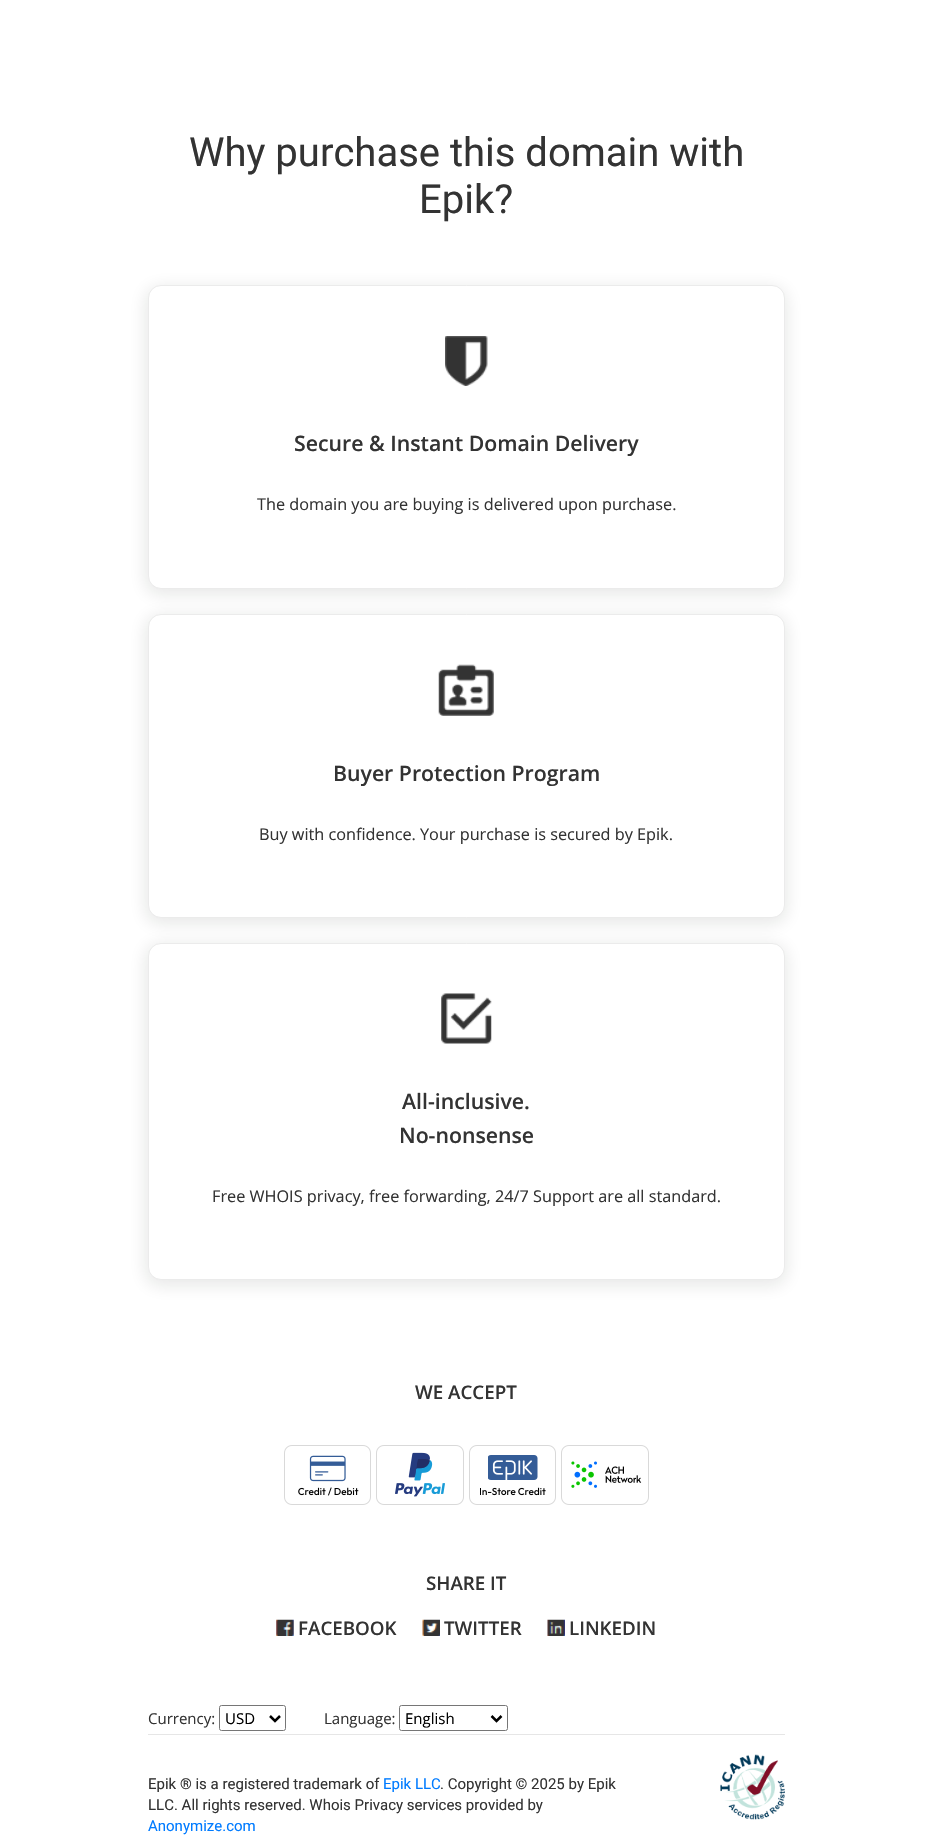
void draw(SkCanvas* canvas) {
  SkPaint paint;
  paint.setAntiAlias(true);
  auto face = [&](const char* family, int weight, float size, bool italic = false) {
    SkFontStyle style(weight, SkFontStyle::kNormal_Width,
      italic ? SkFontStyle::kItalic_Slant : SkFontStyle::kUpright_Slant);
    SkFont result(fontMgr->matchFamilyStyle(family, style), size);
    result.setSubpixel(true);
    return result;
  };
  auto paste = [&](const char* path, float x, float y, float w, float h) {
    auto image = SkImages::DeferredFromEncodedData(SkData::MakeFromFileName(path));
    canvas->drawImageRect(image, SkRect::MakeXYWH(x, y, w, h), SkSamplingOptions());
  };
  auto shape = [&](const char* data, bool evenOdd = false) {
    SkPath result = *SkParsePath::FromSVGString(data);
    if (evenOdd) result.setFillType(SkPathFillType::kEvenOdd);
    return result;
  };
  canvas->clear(0xffffffff);
  paint.setColor(0x1c131f15);
  paint.setMaskFilter(SkMaskFilter::MakeBlur(kNormal_SkBlurStyle, 9));
  canvas->drawRoundRect(SkRect::MakeXYWH(146, 288, 640, 306), 14, 14, paint);
  paint.setMaskFilter(nullptr);
  paint.setColor(0xffffffff);
  canvas->drawRoundRect(SkRect::MakeXYWH(148.5f, 285.5f, 636, 303), 12.5f, 12.5f, paint);
  paint.setStroke(true);
  paint.setStrokeWidth(1);
  paint.setColor(0xffebebeb);
  canvas->drawRoundRect(SkRect::MakeXYWH(148.5f, 285.5f, 636, 303), 12.5f, 12.5f, paint);
  paste("img/1.png", 445, 336, 43, 50);
  paint.setStroke(false);
  paint.setColor(0x1c131f15);
  paint.setMaskFilter(SkMaskFilter::MakeBlur(kNormal_SkBlurStyle, 9));
  canvas->drawRoundRect(SkRect::MakeXYWH(146, 616, 640, 307), 14, 14, paint);
  paint.setMaskFilter(nullptr);
  paint.setColor(0xffffffff);
  canvas->drawRoundRect(SkRect::MakeXYWH(148.5f, 614.5f, 636, 303), 12.5f, 12.5f, paint);
  paint.setStroke(true);
  paint.setColor(0xffebebeb);
  canvas->drawRoundRect(SkRect::MakeXYWH(148.5f, 614.5f, 636, 303), 12.5f, 12.5f, paint);
  paste("img/2.png", 438, 664, 56, 52);
  paint.setStroke(false);
  paint.setColor(0x1c131f15);
  paint.setMaskFilter(SkMaskFilter::MakeBlur(kNormal_SkBlurStyle, 9));
  canvas->drawRoundRect(SkRect::MakeXYWH(146, 945, 640, 340), 14, 14, paint);
  paint.setMaskFilter(nullptr);
  paint.setColor(0xffffffff);
  canvas->drawRoundRect(SkRect::MakeXYWH(148.5f, 943.5f, 636, 336), 12.5f, 12.5f, paint);
  paint.setStroke(true);
  paint.setColor(0xffebebeb);
  canvas->drawRoundRect(SkRect::MakeXYWH(148.5f, 943.5f, 636, 336), 12.5f, 12.5f, paint);
  paste("img/3.png", 441, 993, 51, 51);
  paste("img/4.png", 284, 1445, 87, 60);
  paste("img/5.png", 376, 1445, 88, 60);
  paste("img/6.png", 469, 1445, 87, 60);
  paste("img/7.png", 561, 1445, 88, 60);
  paste("img/8.png", 276, 1619, 18, 17);
  paste("img/9.png", 422, 1619, 18, 17);
  paste("img/10.png", 547, 1619, 18, 17);
  paint.setColor(0xff767676);
  canvas->drawRoundRect(SkRect::MakeXYWH(219.5f, 1705.5f, 66, 25), 2, 2, paint);
  paint.setStrokeWidth(2.5f);
  paint.setColor(0xff000000);
  canvas->drawPath(shape("M270 1716L275 1721L280 1716"), paint);
  paint.setStrokeWidth(1);
  paint.setColor(0xff767676);
  canvas->drawRoundRect(SkRect::MakeXYWH(399.5f, 1705.5f, 108, 25), 2, 2, paint);
  paint.setStrokeWidth(2.5f);
  paint.setColor(0xff000000);
  canvas->drawPath(shape("M491.5 1716L496.5 1721L501.5 1716"), paint);
  paint.setStroke(false);
  paint.setColor(0xffe6e6e6);
  canvas->drawRect(SkRect::MakeXYWH(148, 1734, 637, 1), paint);
  paste("img/11.png", 720, 1754, 65, 66);
  auto f0 = face("Roboto", 400, 40);
  paint.setColor(0xff333333);
  canvas->drawString("Why purchase this domain with", 189, 166, f0, paint);
  canvas->drawString("Epik?", 419, 213, f0, paint);
  auto f1 = face("Open Sans", 600, 21.25f);
  canvas->drawString("Secure & Instant Domain Delivery", 294, 451, f1, paint);
  auto f2 = face("Open Sans", 400, 16.25f);
  canvas->drawString("The domain you are buying is delivered upon purchase.", 257, 510, f2, paint);
  canvas->drawString("Buyer Protection Program", 333, 781, f1, paint);
  canvas->drawString("Buy with confidence. Your purchase is secured by Epik.", 259, 840, f2, paint);
  canvas->drawString("All-inclusive.", 402, 1109, f1, paint);
  canvas->drawString("No-nonsense", 399, 1143, f1, paint);
  canvas->drawString("Free WHOIS privacy, free forwarding, 24/7 Support are all standard.", 212, 1202, f2, paint);
  auto f3 = face("Open Sans", 600, 18.75f);
  {
    const struct { const char* s; float x, y; } items[] = {
      {"WE ACCEPT", 415, 1399},
      {"SHARE IT", 426, 1590},
      {"FACEBOOK", 298, 1635},
      {"TWITTER", 444, 1635},
      {"LINKEDIN", 569, 1635},
    };
    for (auto [s, x, y] : items) {
      canvas->drawString(s, x, y, f3, paint);
    }
  }
  auto f4 = face("Open Sans", 400, 15);
  canvas->drawString("Currency:", 148, 1724, f4, paint);
  paint.setColor(0xff000000);
  canvas->drawString("USD", 225, 1724, f4, paint);
  paint.setColor(0xff333333);
  canvas->drawString("Language:", 324, 1724, f4, paint);
  paint.setColor(0xff000000);
  canvas->drawString("English", 405, 1724, f4, paint);
  auto f5 = face("Roboto", 400, 15);
  paint.setColor(0xff333333);
  canvas->drawString("Epik ® is a registered trademark of", 148, 1789, f5, paint);
  paint.setColor(0xff007bff);
  canvas->drawString("Epik LLC", 383, 1789, f5, paint);
  paint.setColor(0xff333333);
  canvas->drawString(". Copyright © 2025 by Epik", 440, 1789, f5, paint);
  canvas->drawString("LLC. All rights reserved. Whois Privacy services provided by", 148, 1810, f5, paint);
  paint.setColor(0xff007bff);
  canvas->drawString("Anonymize.com", 148, 1831, f5, paint);
}
